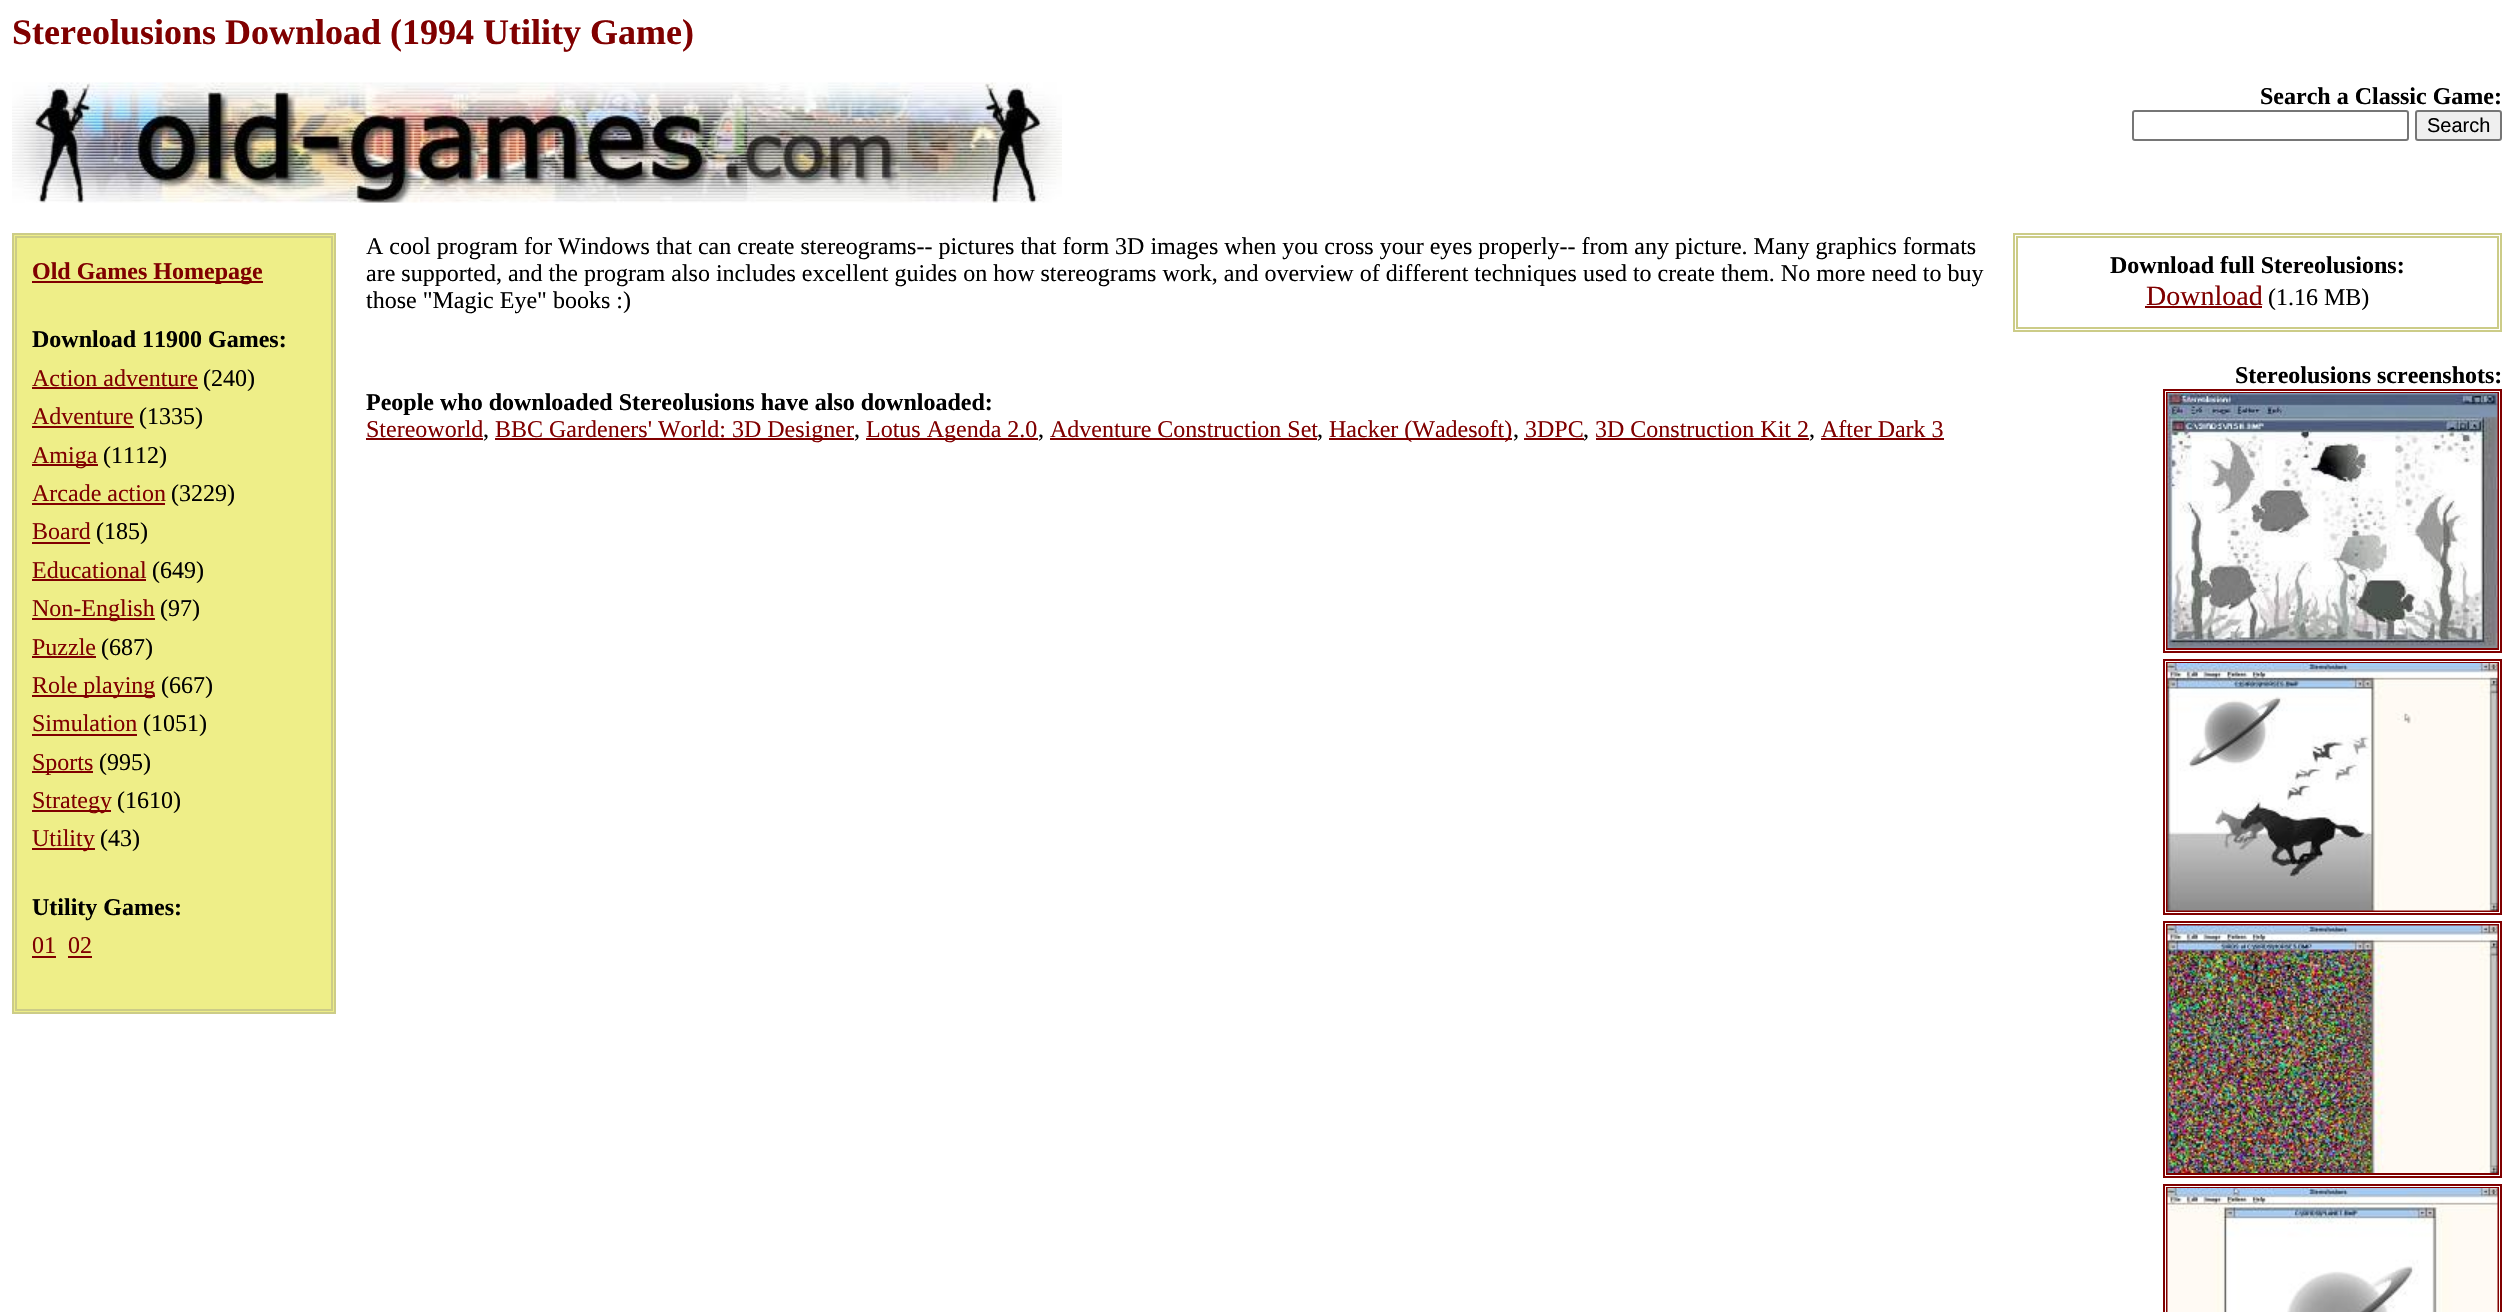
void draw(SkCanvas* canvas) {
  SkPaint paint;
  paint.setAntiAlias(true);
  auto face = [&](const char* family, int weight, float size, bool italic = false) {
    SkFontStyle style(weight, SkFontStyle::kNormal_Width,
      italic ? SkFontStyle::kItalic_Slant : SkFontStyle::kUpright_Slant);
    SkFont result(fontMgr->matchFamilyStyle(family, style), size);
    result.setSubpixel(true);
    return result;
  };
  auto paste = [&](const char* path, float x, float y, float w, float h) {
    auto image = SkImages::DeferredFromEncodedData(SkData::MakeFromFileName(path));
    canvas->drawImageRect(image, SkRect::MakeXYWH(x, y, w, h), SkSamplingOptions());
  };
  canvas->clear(0xffffffff);
  paste("img/1.png", 12, 82, 1050, 121);
  paint.setStroke(true);
  paint.setStrokeWidth(2);
  paint.setColor(0xff767676);
  canvas->drawRoundRect(SkRect::MakeXYWH(2133, 111, 275, 29), 2, 2, paint);
  paint.setStroke(false);
  paint.setColor(0xffefefef);
  canvas->drawRoundRect(SkRect::MakeXYWH(2416, 111, 85, 29), 2, 2, paint);
  paint.setStroke(true);
  paint.setColor(0xff767676);
  canvas->drawRoundRect(SkRect::MakeXYWH(2416, 111, 85, 29), 2, 2, paint);
  paint.setStroke(false);
  paint.setColor(0xffeeee88);
  canvas->drawRect(SkRect::MakeXYWH(13, 234, 322, 779), paint);
  paint.setStroke(true);
  paint.setColor(0xffcccc88);
  canvas->drawRect(SkRect::MakeXYWH(13, 234, 322, 779), paint);
  canvas->drawRect(SkRect::MakeXYWH(16, 237, 316, 773), paint);
  paint.setStroke(false);
  {
    const struct { float x, y, w, h; SkColor color; } items[] = {
      {32, 281, 231, 2, 0xff800000},
      {32, 387, 166, 2, 0xff800000},
      {32, 426, 102, 2, 0xff800000},
      {32, 464, 66, 2, 0xff800000},
      {32, 503, 133, 2, 0xff800000},
      {32, 542, 58, 2, 0xff800000},
      {32, 579, 114, 2, 0xff800000},
      {32, 618, 123, 2, 0xff800000},
      {32, 656, 64, 2, 0xff800000},
      {32, 695, 123, 2, 0xff800000},
      {32, 734, 105, 2, 0xff800000},
      {32, 771, 61, 2, 0xff800000},
      {32, 810, 79, 2, 0xff800000},
      {32, 848, 63, 2, 0xff800000},
      {32, 956, 24, 2, 0xff800000},
      {68, 956, 24, 2, 0xff800000},
      {366, 438, 117, 2, 0xff800000},
      {495, 438, 359, 2, 0xff800000},
      {866, 438, 172, 2, 0xff800000},
      {1050, 438, 267, 2, 0xff800000},
      {1329, 438, 183, 2, 0xff800000},
      {1524, 438, 60, 2, 0xff800000},
      {1596, 438, 213, 2, 0xff800000},
      {1821, 438, 123, 2, 0xff800000},
    };
    for (auto [x, y, w, h, color] : items) {
      paint.setColor(color);
      canvas->drawRect(SkRect::MakeXYWH(x, y, w, h), paint);
    }
  }
  paint.setStroke(true);
  paint.setColor(0xffcccc88);
  canvas->drawRect(SkRect::MakeXYWH(2014, 234, 487, 97), paint);
  canvas->drawRect(SkRect::MakeXYWH(2017, 237, 481, 91), paint);
  paint.setStroke(false);
  paint.setColor(0xff800000);
  canvas->drawRect(SkRect::MakeXYWH(2145, 306, 117, 2), paint);
  paint.setStroke(true);
  canvas->drawRect(SkRect::MakeXYWH(2164, 390, 337, 262), paint);
  canvas->drawRect(SkRect::MakeXYWH(2167, 393, 331, 256), paint);
  paste("img/2.png", 2167, 393, 331, 255);
  canvas->drawRect(SkRect::MakeXYWH(2164, 660, 337, 254), paint);
  canvas->drawRect(SkRect::MakeXYWH(2167, 663, 331, 248), paint);
  paste("img/3.png", 2167, 663, 331, 248);
  canvas->drawRect(SkRect::MakeXYWH(2164, 922, 337, 255), paint);
  canvas->drawRect(SkRect::MakeXYWH(2167, 925, 331, 249), paint);
  paste("img/4.png", 2167, 925, 331, 248);
  canvas->drawRect(SkRect::MakeXYWH(2164, 1185, 337, 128), paint);
  canvas->drawRect(SkRect::MakeXYWH(2167, 1188, 331, 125), paint);
  paste("img/5.png", 2167, 1188, 331, 124);
  auto f0 = face("Liberation Serif", 700, 36);
  paint.setStroke(false);
  canvas->drawString("Stereolusions Download (1994 Utility Game)", 12, 44, f0, paint);
  auto f1 = face("Liberation Serif", 700, 24);
  paint.setColor(0xff000000);
  canvas->drawString("Search a Classic Game:", 2260, 104, f1, paint);
  auto f2 = face("Liberation Sans", 400, 20);
  canvas->drawString("Search", 2427, 132, f2, paint);
  paint.setColor(0xff800000);
  canvas->drawString("Old Games Homepage", 32, 279, f1, paint);
  paint.setColor(0xff000000);
  canvas->drawString("Download 11900 Games:", 32, 347, f1, paint);
  auto f3 = face("Liberation Serif", 400, 24);
  paint.setColor(0xff800000);
  canvas->drawString("Action adventure", 32, 386, f3, paint);
  paint.setColor(0xff000000);
  canvas->drawString("(240)", 203, 386, f3, paint);
  paint.setColor(0xff800000);
  canvas->drawString("Adventure", 32, 424, f3, paint);
  paint.setColor(0xff000000);
  canvas->drawString("(1335)", 139, 424, f3, paint);
  paint.setColor(0xff800000);
  canvas->drawString("Amiga", 32, 463, f3, paint);
  paint.setColor(0xff000000);
  canvas->drawString("(1112)", 103, 463, f3, paint);
  paint.setColor(0xff800000);
  canvas->drawString("Arcade action", 32, 501, f3, paint);
  paint.setColor(0xff000000);
  canvas->drawString("(3229)", 171, 501, f3, paint);
  paint.setColor(0xff800000);
  canvas->drawString("Board", 32, 539, f3, paint);
  paint.setColor(0xff000000);
  canvas->drawString("(185)", 96, 539, f3, paint);
  paint.setColor(0xff800000);
  canvas->drawString("Educational", 32, 578, f3, paint);
  paint.setColor(0xff000000);
  canvas->drawString("(649)", 152, 578, f3, paint);
  paint.setColor(0xff800000);
  canvas->drawString("Non-English", 32, 616, f3, paint);
  paint.setColor(0xff000000);
  canvas->drawString("(97)", 160, 616, f3, paint);
  paint.setColor(0xff800000);
  canvas->drawString("Puzzle", 32, 655, f3, paint);
  paint.setColor(0xff000000);
  canvas->drawString("(687)", 101, 655, f3, paint);
  paint.setColor(0xff800000);
  canvas->drawString("Role playing", 32, 693, f3, paint);
  paint.setColor(0xff000000);
  canvas->drawString("(667)", 161, 693, f3, paint);
  paint.setColor(0xff800000);
  canvas->drawString("Simulation", 32, 731, f3, paint);
  paint.setColor(0xff000000);
  canvas->drawString("(1051)", 143, 731, f3, paint);
  paint.setColor(0xff800000);
  canvas->drawString("Sports", 32, 770, f3, paint);
  paint.setColor(0xff000000);
  canvas->drawString("(995)", 99, 770, f3, paint);
  paint.setColor(0xff800000);
  canvas->drawString("Strategy", 32, 808, f3, paint);
  paint.setColor(0xff000000);
  canvas->drawString("(1610)", 117, 808, f3, paint);
  paint.setColor(0xff800000);
  canvas->drawString("Utility", 32, 846, f3, paint);
  paint.setColor(0xff000000);
  canvas->drawString("(43)", 100, 846, f3, paint);
  canvas->drawString("Utility Games:", 32, 915, f1, paint);
  paint.setColor(0xff800000);
  canvas->drawString("01", 32, 953, f3, paint);
  canvas->drawString("02", 68, 953, f3, paint);
  paint.setColor(0xff000000);
  {
    const struct { const char* s; float x, y; } items[] = {
      {"A cool program for Windows that can create stereograms-- pictures that form 3D images when you cross your eyes properly-- from any picture. Many graphics formats", 366, 254},
      {"are supported, and the program also includes excellent guides on how stereograms work, and overview of different techniques used to create them. No more need to buy", 366, 281},
      {"those \"Magic Eye\" books :)", 366, 308},
    };
    for (auto [s, x, y] : items) {
      canvas->drawString(s, x, y, f3, paint);
    }
  }
  canvas->drawString("People who downloaded Stereolusions have also downloaded:", 366, 410, f1, paint);
  paint.setColor(0xff800000);
  canvas->drawString("Stereoworld", 366, 437, f3, paint);
  paint.setColor(0xff000000);
  canvas->drawString(",", 483, 437, f3, paint);
  paint.setColor(0xff800000);
  canvas->drawString("BBC Gardeners' World: 3D Designer", 495, 437, f3, paint);
  paint.setColor(0xff000000);
  canvas->drawString(",", 854, 437, f3, paint);
  paint.setColor(0xff800000);
  canvas->drawString("Lotus Agenda 2.0", 866, 437, f3, paint);
  paint.setColor(0xff000000);
  canvas->drawString(",", 1038, 437, f3, paint);
  paint.setColor(0xff800000);
  canvas->drawString("Adventure Construction Set", 1050, 437, f3, paint);
  paint.setColor(0xff000000);
  canvas->drawString(",", 1317, 437, f3, paint);
  paint.setColor(0xff800000);
  canvas->drawString("Hacker (Wadesoft)", 1329, 437, f3, paint);
  paint.setColor(0xff000000);
  canvas->drawString(",", 1513, 437, f3, paint);
  paint.setColor(0xff800000);
  canvas->drawString("3DPC", 1525, 437, f3, paint);
  paint.setColor(0xff000000);
  canvas->drawString(",", 1583, 437, f3, paint);
  paint.setColor(0xff800000);
  canvas->drawString("3D Construction Kit 2", 1595, 437, f3, paint);
  paint.setColor(0xff000000);
  canvas->drawString(",", 1809, 437, f3, paint);
  paint.setColor(0xff800000);
  canvas->drawString("After Dark 3", 1821, 437, f3, paint);
  paint.setColor(0xff000000);
  canvas->drawString("Download full Stereolusions:", 2110, 273, f1, paint);
  auto f4 = face("Liberation Serif", 400, 28);
  paint.setColor(0xff800000);
  canvas->drawString("Download", 2146, 305, f4, paint);
  paint.setColor(0xff000000);
  canvas->drawString("(1.16 MB)", 2268, 305, f3, paint);
  canvas->drawString("Stereolusions screenshots:", 2235, 383, f1, paint);
}
